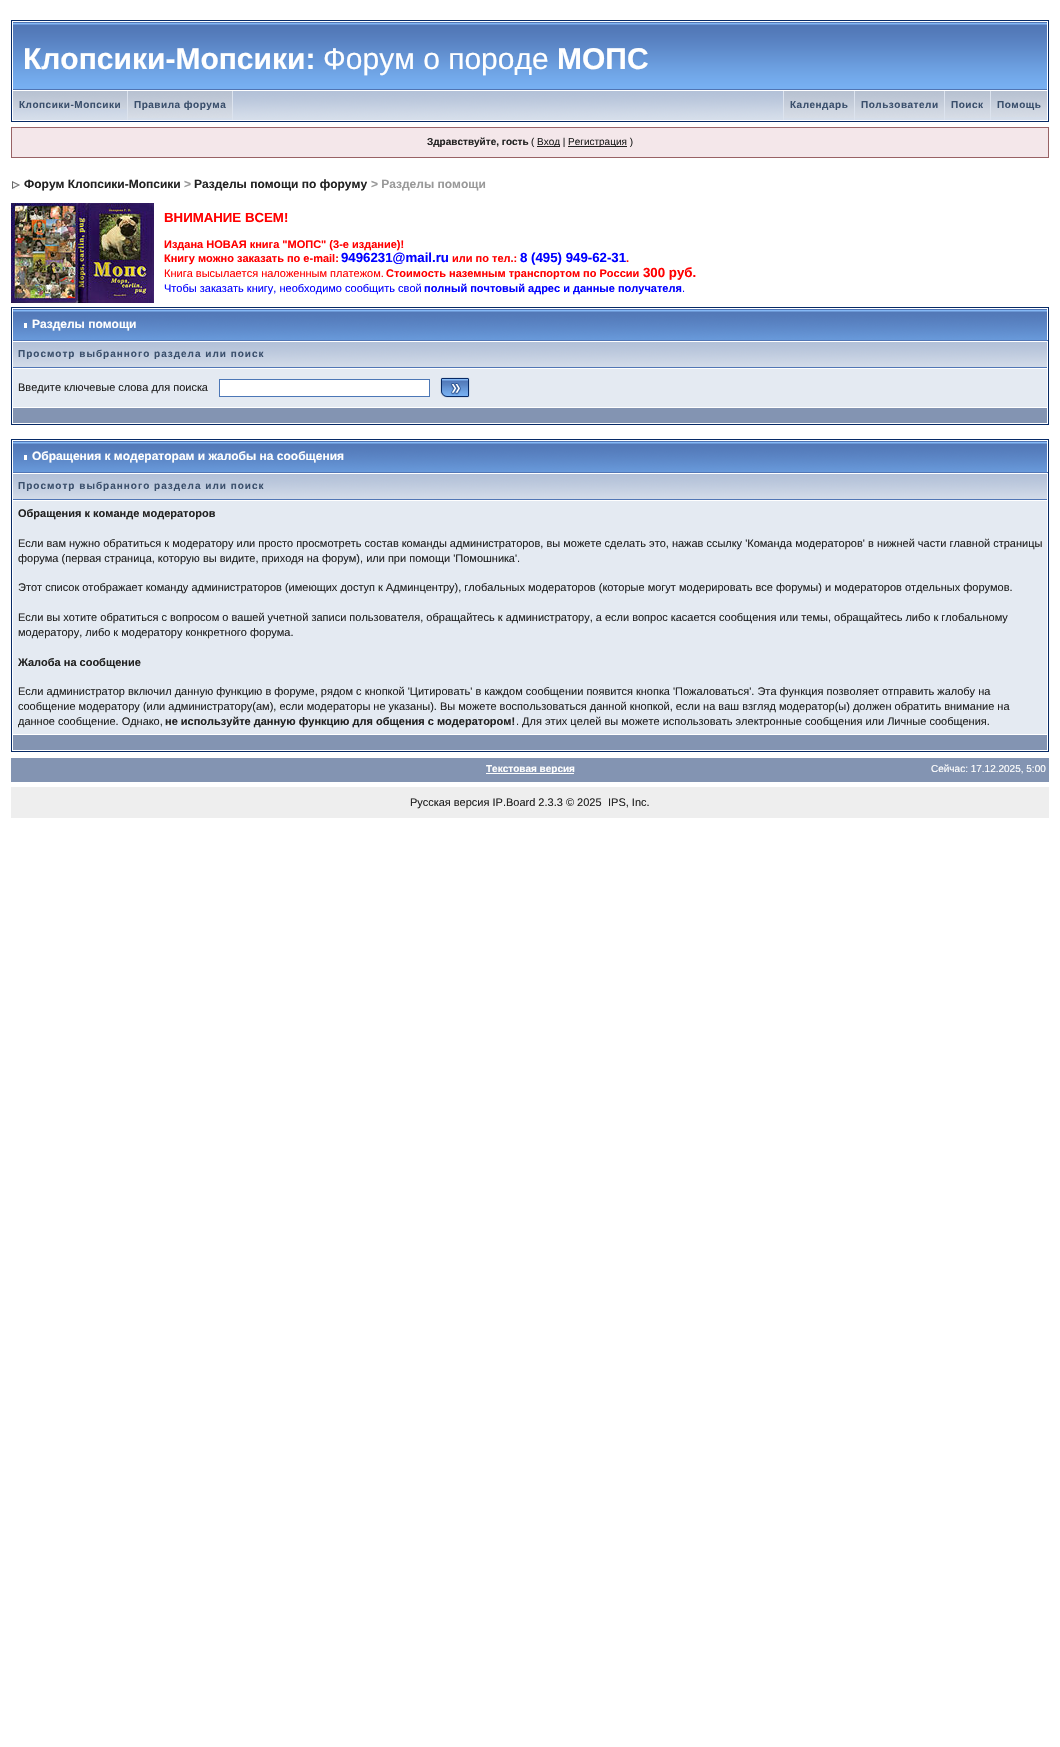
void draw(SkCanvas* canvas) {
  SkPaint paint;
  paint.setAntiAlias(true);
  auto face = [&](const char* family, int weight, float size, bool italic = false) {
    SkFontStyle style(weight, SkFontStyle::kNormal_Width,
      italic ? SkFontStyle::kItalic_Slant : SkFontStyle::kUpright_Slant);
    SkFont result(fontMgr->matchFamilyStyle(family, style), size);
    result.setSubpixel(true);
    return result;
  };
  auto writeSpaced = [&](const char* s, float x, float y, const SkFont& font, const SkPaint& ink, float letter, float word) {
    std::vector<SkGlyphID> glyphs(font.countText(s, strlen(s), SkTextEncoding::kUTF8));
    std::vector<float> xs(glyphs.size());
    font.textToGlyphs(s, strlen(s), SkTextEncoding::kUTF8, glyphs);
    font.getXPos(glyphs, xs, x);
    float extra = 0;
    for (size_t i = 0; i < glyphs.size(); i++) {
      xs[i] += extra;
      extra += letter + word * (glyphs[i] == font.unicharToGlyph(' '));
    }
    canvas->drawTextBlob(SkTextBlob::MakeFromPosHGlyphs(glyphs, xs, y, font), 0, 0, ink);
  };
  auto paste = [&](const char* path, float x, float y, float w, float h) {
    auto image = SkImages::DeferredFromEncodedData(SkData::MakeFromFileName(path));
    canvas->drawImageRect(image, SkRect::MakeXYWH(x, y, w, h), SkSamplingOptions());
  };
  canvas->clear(0xffffffff);
  paint.setStroke(true);
  paint.setStrokeWidth(1);
  paint.setColor(0xff072a66);
  canvas->drawRect(SkRect::MakeXYWH(11.5f, 20.5f, 1037, 101), paint);
  paste("img/1.png", 13, 22, 1034, 68);
  paste("img/2.png", 13, 91, 1034, 29);
  paste("img/3.png", 13, 91, 114, 18);
  paint.setStroke(false);
  paint.setColor(0xffdce3ee);
  canvas->drawRect(SkRect::MakeXYWH(127, 91, 1, 29), paint);
  paste("img/4.png", 128, 91, 104, 27);
  canvas->drawRect(SkRect::MakeXYWH(232, 91, 1, 29), paint);
  paste("img/5.png", 784, 91, 70, 27);
  canvas->drawRect(SkRect::MakeXYWH(783, 91, 1, 29), paint);
  paste("img/6.png", 855, 91, 89, 27);
  canvas->drawRect(SkRect::MakeXYWH(854, 91, 1, 29), paint);
  paste("img/7.png", 945, 91, 45, 27);
  canvas->drawRect(SkRect::MakeXYWH(944, 91, 1, 29), paint);
  paste("img/8.png", 991, 91, 56, 26);
  canvas->drawRect(SkRect::MakeXYWH(990, 91, 1, 29), paint);
  paint.setColor(0xfff4e7ea);
  canvas->drawRect(SkRect::MakeXYWH(11.5f, 127.5f, 1037, 30), paint);
  paint.setStroke(true);
  paint.setColor(0xff986265);
  canvas->drawRect(SkRect::MakeXYWH(11.5f, 127.5f, 1037, 30), paint);
  paint.setStroke(false);
  paint.setColor(0xff222222);
  canvas->drawRect(SkRect::MakeXYWH(537, 146, 23, 1), paint);
  canvas->drawRect(SkRect::MakeXYWH(568, 146, 59, 1), paint);
  paste("img/9.png", 12, 181, 8, 8);
  paste("img/10.png", 11, 203, 143, 100);
  paint.setStroke(true);
  paint.setColor(0xff072a66);
  canvas->drawRect(SkRect::MakeXYWH(11.5f, 307.5f, 1037, 117), paint);
  paste("img/11.png", 13, 309, 1034, 31);
  paint.setStroke(false);
  {
    const struct { float x, y, w, h; SkColor color; } items[] = {
      {12, 340, 1036, 1, 0xff5176b5},
      {12, 340, 1, 1, 0xffffffff},
      {24, 323, 3, 5, 0xffffffff},
    };
    for (auto [x, y, w, h, color] : items) {
      paint.setColor(color);
      canvas->drawRect(SkRect::MakeXYWH(x, y, w, h), paint);
    }
  }
  paste("img/12.png", 13, 342, 1034, 25);
  paint.setColor(0xff5176b5);
  canvas->drawRect(SkRect::MakeXYWH(13, 367, 1034, 1), paint);
  paint.setColor(0xffe4eaf2);
  canvas->drawRect(SkRect::MakeXYWH(13, 369, 1034, 38), paint);
  paint.setColor(0xffffffff);
  canvas->drawRect(SkRect::MakeXYWH(219.5f, 379.5f, 210, 17), paint);
  paint.setStroke(true);
  paint.setColor(0xff4c77b6);
  canvas->drawRect(SkRect::MakeXYWH(219.5f, 379.5f, 210, 17), paint);
  paste("img/13.png", 440, 377, 30, 21);
  paint.setStroke(false);
  paint.setColor(0xff8394b2);
  canvas->drawRect(SkRect::MakeXYWH(13, 408, 1034, 15), paint);
  paint.setStroke(true);
  paint.setColor(0xff072a66);
  canvas->drawRect(SkRect::MakeXYWH(11.5f, 439.5f, 1037, 312), paint);
  paste("img/11.png", 13, 441, 1034, 31);
  paint.setStroke(false);
  {
    const struct { float x, y, w, h; SkColor color; } items[] = {
      {12, 472, 1036, 1, 0xff5176b5},
      {12, 472, 1, 1, 0xffffffff},
      {24, 455, 3, 5, 0xffffffff},
    };
    for (auto [x, y, w, h, color] : items) {
      paint.setColor(color);
      canvas->drawRect(SkRect::MakeXYWH(x, y, w, h), paint);
    }
  }
  paste("img/12.png", 13, 474, 1034, 25);
  {
    const struct { float x, y, w, h; SkColor color; } items[] = {
      {13, 499, 1034, 1, 0xff5176b5},
      {13, 501, 1034, 233, 0xffe4eaf2},
      {13, 735, 1034, 15, 0xff8394b2},
      {11, 758, 1038, 24, 0xff8394b2},
      {486, 773, 88, 1, 0xffffffff},
      {11, 787, 1038, 31, 0xffeeeeee},
    };
    for (auto [x, y, w, h, color] : items) {
      paint.setColor(color);
      canvas->drawRect(SkRect::MakeXYWH(x, y, w, h), paint);
    }
  }
  auto f0 = face("Liberation Sans", 700, 30);
  paint.setColor(0xffffffff);
  canvas->drawString("Клопсики-Мопсики:", 23, 69, f0, paint);
  auto f1 = face("Liberation Sans", 400, 30);
  canvas->drawString("Форум о породе", 323, 69, f1, paint);
  canvas->drawString("МОПС", 557, 69, f0, paint);
  auto f2 = face("Liberation Sans", 700, 10);
  paint.setColor(0xff3a4f6c);
  {
    const struct { const char* s; float x, y; } items[] = {
      {"Клопсики-Мопсики", 19, 108},
      {"Правила форума", 134, 108},
      {"Календарь", 790, 108},
      {"Пользователи", 861, 108},
      {"Поиск", 951, 108},
      {"Помощь", 997, 108},
    };
    for (auto [s, x, y] : items) {
      writeSpaced(s, x, y, f2, paint, 0.5f, 0);
    }
  }
  paint.setColor(0xff222222);
  canvas->drawString("Здравствуйте, гость", 427, 145, f2, paint);
  auto f3 = face("Liberation Sans", 400, 10);
  {
    const struct { const char* s; float x, y; } items[] = {
      {"(", 531, 145},
      {"Вход |", 537, 145},
      {"Регистрация )", 568, 145},
    };
    for (auto [s, x, y] : items) {
      canvas->drawString(s, x, y, f3, paint);
    }
  }
  auto f4 = face("Liberation Sans", 700, 12);
  canvas->drawString("Форум Клопсики-Мопсики", 24, 188, f4, paint);
  paint.setColor(0xff999999);
  canvas->drawString(">", 184, 188, f4, paint);
  paint.setColor(0xff222222);
  canvas->drawString("Разделы помощи по форуму", 194, 188, f4, paint);
  paint.setColor(0xff999999);
  canvas->drawString("> Разделы помощи", 371, 188, f4, paint);
  auto f5 = face("Liberation Sans", 700, 13.25f);
  paint.setColor(0xffff0000);
  canvas->drawString("ВНИМАНИЕ ВСЕМ!", 164, 222, f5, paint);
  auto f6 = face("Liberation Sans", 700, 11);
  canvas->drawString("Издана НОВАЯ книга \"МОПС\" (3-е издание)!", 164, 248, f6, paint);
  canvas->drawString("Книгу можно заказать по e-mail:", 164, 262, f6, paint);
  paint.setColor(0xff0000ff);
  canvas->drawString("9496231@mail.ru", 341, 262, f5, paint);
  paint.setColor(0xffff0000);
  canvas->drawString("или по тел.:", 452, 262, f6, paint);
  paint.setColor(0xff0000ff);
  canvas->drawString("8 (495) 949-62-31", 520, 262, f5, paint);
  paint.setColor(0xffff0000);
  canvas->drawString(".", 626, 262, f6, paint);
  auto f7 = face("Liberation Sans", 400, 11);
  canvas->drawString("Книга высылается наложенным платежом.", 164, 277, f7, paint);
  canvas->drawString("Стоимость наземным транспортом по России", 386, 277, f6, paint);
  canvas->drawString("300 руб.", 643, 277, f5, paint);
  paint.setColor(0xff0000ff);
  canvas->drawString("Чтобы заказать книгу, необходимо сообщить свой", 164, 292, f7, paint);
  canvas->drawString("полный почтовый адрес и данные получателя", 424, 292, f6, paint);
  canvas->drawString(".", 682, 292, f7, paint);
  paint.setColor(0xffffffff);
  canvas->drawString("Разделы помощи", 32, 328, f4, paint);
  paint.setColor(0xff3a4f6c);
  writeSpaced("Просмотр выбранного раздела или поиск", 18, 357, f2, paint, 1, 0);
  paint.setColor(0xff222222);
  canvas->drawString("Введите ключевые слова для поиска", 18, 391, f7, paint);
  paint.setColor(0xffffffff);
  canvas->drawString("Обращения к модераторам и жалобы на сообщения", 32, 460, f4, paint);
  paint.setColor(0xff3a4f6c);
  writeSpaced("Просмотр выбранного раздела или поиск", 18, 489, f2, paint, 1, 0);
  paint.setColor(0xff222222);
  canvas->drawString("Обращения к команде модераторов", 18, 517, f6, paint);
  {
    const struct { const char* s; float x, y; } items[] = {
      {"Если вам нужно обратиться к модератору или просто просмотреть состав команды администраторов, вы можете сделать это, нажав ссылку 'Команда модераторов' в нижней части главной страницы", 18, 547},
      {"форума (первая страница, которую вы видите, приходя на форум), или при помощи 'Помошника'.", 18, 562},
      {"Этот список отображает команду администраторов (имеющих доступ к Админцентру), глобальных модераторов (которые могут модерировать все форумы) и модераторов отдельных форумов.", 18, 591},
      {"Если вы хотите обратиться с вопросом о вашей учетной записи пользователя, обращайтесь к администратору, а если вопрос касается сообщения или темы, обращайтесь либо к глобальному", 18, 621},
      {"модератору, либо к модератору конкретного форума.", 18, 636},
    };
    for (auto [s, x, y] : items) {
      canvas->drawString(s, x, y, f7, paint);
    }
  }
  canvas->drawString("Жалоба на сообщение", 18, 666, f6, paint);
  {
    const struct { const char* s; float x, y; } items[] = {
      {"Если администратор включил данную функцию в форуме, рядом с кнопкой 'Цитировать' в каждом сообщении появится кнопка 'Пожаловаться'. Эта функция позволяет отправить жалобу на", 18, 695},
      {"сообщение модератору (или администратору(ам), если модераторы не указаны). Вы можете воспользоваться данной кнопкой, если на ваш взгляд модератор(ы) должен обратить внимание на", 18, 710},
      {"данное сообщение. Однако,", 18, 725},
    };
    for (auto [s, x, y] : items) {
      canvas->drawString(s, x, y, f7, paint);
    }
  }
  canvas->drawString("не используйте данную функцию для общения с модератором!", 165, 725, f6, paint);
  canvas->drawString(". Для этих целей вы можете использовать электронные сообщения или Личные сообщения.", 516, 725, f7, paint);
  paint.setColor(0xffffffff);
  canvas->drawString("Текстовая версия", 486, 772, f2, paint);
  canvas->drawString("Сейчас: 17.12.2025, 5:00", 931, 772, f3, paint);
  paint.setColor(0xff222222);
  canvas->drawString("Русская версия IP.Board 2.3.3 © 2025", 410, 806, f7, paint);
  canvas->drawString("IPS, Inc.", 608, 806, f7, paint);
}
